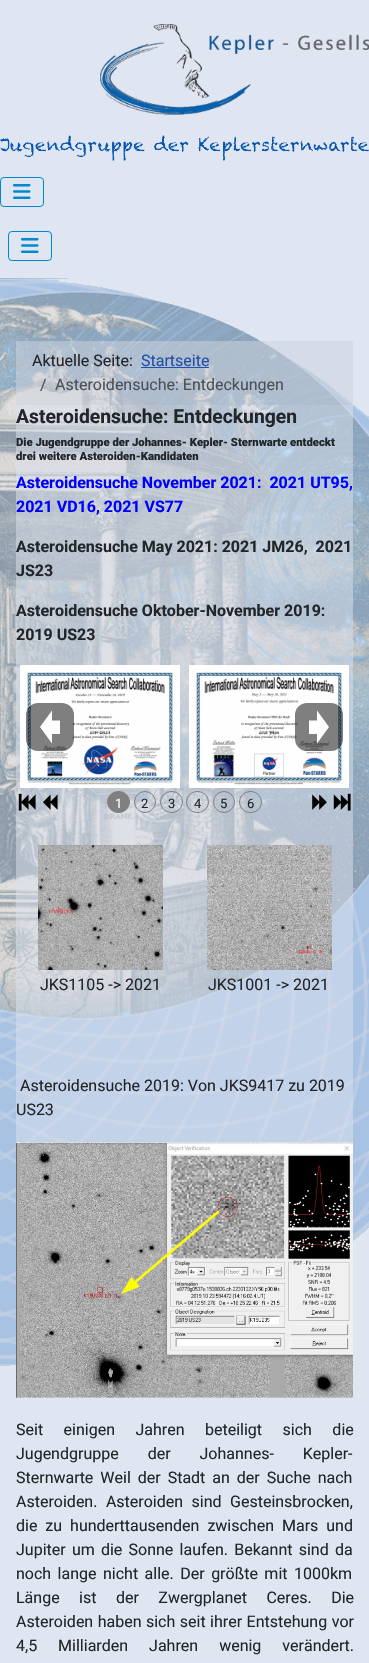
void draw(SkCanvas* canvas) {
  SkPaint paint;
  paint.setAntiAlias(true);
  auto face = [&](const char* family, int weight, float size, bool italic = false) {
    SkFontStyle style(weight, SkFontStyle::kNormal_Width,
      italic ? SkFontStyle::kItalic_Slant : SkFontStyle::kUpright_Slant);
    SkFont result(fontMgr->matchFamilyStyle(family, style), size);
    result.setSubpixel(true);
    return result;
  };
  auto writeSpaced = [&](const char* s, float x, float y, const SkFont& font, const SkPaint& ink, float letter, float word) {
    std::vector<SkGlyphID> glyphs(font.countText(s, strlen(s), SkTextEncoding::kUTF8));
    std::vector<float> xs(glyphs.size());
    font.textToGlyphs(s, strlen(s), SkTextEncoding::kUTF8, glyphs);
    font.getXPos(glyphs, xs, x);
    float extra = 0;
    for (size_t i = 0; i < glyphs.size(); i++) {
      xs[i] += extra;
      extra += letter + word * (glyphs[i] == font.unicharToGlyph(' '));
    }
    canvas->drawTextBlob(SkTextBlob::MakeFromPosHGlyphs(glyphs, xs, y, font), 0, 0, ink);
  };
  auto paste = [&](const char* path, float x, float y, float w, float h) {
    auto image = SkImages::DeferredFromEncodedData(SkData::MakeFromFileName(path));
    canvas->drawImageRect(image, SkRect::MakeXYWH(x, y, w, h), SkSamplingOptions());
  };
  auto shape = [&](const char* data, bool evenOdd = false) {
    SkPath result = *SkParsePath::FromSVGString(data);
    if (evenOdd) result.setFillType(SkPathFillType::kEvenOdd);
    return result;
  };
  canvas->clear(0xffdfe5f1);
  paste("img/1.png", 0, 278, 369, 1088);
  paste("img/2.png", 100, 24, 269, 91);
  paste("img/3.png", 0, 135, 369, 26);
  paint.setStroke(true);
  paint.setStrokeWidth(1);
  paint.setColor(0xff0088cc);
  canvas->drawRoundRect(SkRect::MakeXYWH(0.5f, 177.5f, 43, 29), 3.5f, 3.5f, paint);
  paste("img/4.png", 13, 184, 18, 15);
  canvas->drawRoundRect(SkRect::MakeXYWH(8.5f, 231.5f, 43, 29), 3.5f, 3.5f, paint);
  paste("img/5.png", 21, 238, 18, 15);
  paint.setStroke(false);
  {
    const struct { float x, y, w, h; SkColor color; } items[] = {
      {16, 341, 337, 1024, 0x80dce2ed},
      {16, 341, 337, 64, 0x08000000},
      {141, 367, 68, 1, 0xff224faa},
    };
    for (auto [x, y, w, h, color] : items) {
      paint.setColor(color);
      canvas->drawRect(SkRect::MakeXYWH(x, y, w, h), paint);
    }
  }
  paste("img/6.png", 20, 665, 160, 123);
  paste("img/7.png", 189, 665, 160, 123);
  paint.setColor(0x80000000);
  canvas->drawRoundRect(SkRect::MakeXYWH(26, 703, 48, 48), 12, 12, paint);
  paint.setColor(0xffffffff);
  canvas->drawPath(shape("M52 720.5H60V734H52ZM40 727L52 743.5M52 743.5L40 727L52 710.5"), paint);
  paint.setColor(0x80000000);
  canvas->drawRoundRect(SkRect::MakeXYWH(295, 703, 48, 48), 12, 12, paint);
  paint.setColor(0xffffffff);
  canvas->drawPath(shape("M317 720.5H309V734H317ZM329 727L317 743.5M317 743.5L329 727L317 710.5"), paint);
  paste("img/8.png", 18, 793, 18, 18);
  paste("img/9.png", 43, 794, 15, 16);
  paint.setColor(0xff808080);
  canvas->drawRoundRect(SkRect::MakeXYWH(107.5f, 791.5f, 22, 21), 10.5f, 10.5f, paint);
  paint.setStroke(true);
  canvas->drawRoundRect(SkRect::MakeXYWH(107.5f, 791.5f, 22, 21), 10.5f, 10.5f, paint);
  canvas->drawCircle(145, 802, 10.5f, paint);
  canvas->drawRoundRect(SkRect::MakeXYWH(160.5f, 791.5f, 22, 21), 10.5f, 10.5f, paint);
  canvas->drawRoundRect(SkRect::MakeXYWH(186.5f, 791.5f, 22, 21), 10.5f, 10.5f, paint);
  canvas->drawCircle(224, 802, 10.5f, paint);
  canvas->drawRoundRect(SkRect::MakeXYWH(239.5f, 791.5f, 22, 21), 10.5f, 10.5f, paint);
  paste("img/10.png", 312, 794, 15, 16);
  paste("img/11.png", 333, 793, 18, 18);
  paste("img/12.png", 38, 845, 125, 125);
  paste("img/13.png", 207, 845, 125, 125);
  paste("img/14.png", 16, 1142, 337, 256);
  auto f0 = face("Roboto", 400, 16);
  paint.setStroke(false);
  paint.setColor(0xff22262a);
  canvas->drawString("Aktuelle Seite:", 32, 366, f0, paint);
  paint.setColor(0xff224faa);
  canvas->drawString("Startseite", 141, 366, f0, paint);
  paint.setColor(0xff4c5055);
  canvas->drawString("/", 40, 390, f0, paint);
  canvas->drawString("Asteroidensuche: Entdeckungen", 55, 390, f0, paint);
  auto f1 = face("Roboto", 700, 19.3f);
  paint.setColor(0xff22262a);
  canvas->drawString("Asteroidensuche: Entdeckungen", 16, 423, f1, paint);
  auto f2 = face("Roboto", 900, 11.3f);
  canvas->drawString("Die Jugendgruppe der Johannes- Kepler- Sternwarte entdeckt", 16, 446, f2, paint);
  canvas->drawString("drei weitere Asteroiden-Kandidaten", 16, 460, f2, paint);
  auto f3 = face("Roboto", 700, 16);
  paint.setColor(0xff0000ff);
  canvas->drawString("Asteroidensuche November 2021:  2021 UT95,", 16, 488, f3, paint);
  canvas->drawString("2021 VD16, 2021 VS77", 16, 512, f3, paint);
  paint.setColor(0xff22262a);
  {
    const struct { const char* s; float x, y; } items[] = {
      {"Asteroidensuche May 2021: 2021 JM26,  2021", 16, 552},
      {"JS23", 16, 576},
      {"Asteroidensuche Oktober-November 2019:", 16, 616},
      {"2019 US23", 16, 640},
    };
    for (auto [s, x, y] : items) {
      canvas->drawString(s, x, y, f3, paint);
    }
  }
  auto f4 = face("Roboto", 400, 13);
  paint.setColor(0xffffffff);
  canvas->drawString("1", 115, 808, f4, paint);
  paint.setColor(0xff22262a);
  {
    const struct { const char* s; float x, y; } items[] = {
      {"2", 141, 808},
      {"3", 168, 808},
      {"4", 194, 808},
      {"5", 220, 808},
      {"6", 247, 808},
    };
    for (auto [s, x, y] : items) {
      canvas->drawString(s, x, y, f4, paint);
    }
  }
  {
    const struct { const char* s; float x, y; } items[] = {
      {"JKS1105 -> 2021", 40, 990},
      {"JKS1001 -> 2021", 208, 990},
      {"Asteroidensuche 2019: Von JKS9417 zu 2019", 20, 1091},
      {"US23", 16, 1115},
    };
    for (auto [s, x, y] : items) {
      canvas->drawString(s, x, y, f0, paint);
    }
  }
  writeSpaced("Seit einigen Jahren beteiligt sich die", 16, 1435, f0, paint, 0, 16.5f);
  writeSpaced("Jugendgruppe der Johannes- Kepler-", 16, 1459, f0, paint, 0, 25);
  writeSpaced("Sternwarte Weil der Stadt an der Suche nach", 16, 1483, f0, paint, 0, 3);
  writeSpaced("Asteroiden. Asteroiden sind Gesteinsbrocken,", 16, 1507, f0, paint, 0, 4.5f);
  writeSpaced("die zu hunderttausenden zwischen Mars und", 16, 1531, f0, paint, 0, 4);
  writeSpaced("Jupiter um die Sonne laufen. Bekannt sind da", 16, 1555, f0, paint, 0, 2.25f);
  writeSpaced("noch lange nicht alle. Der größte mit 1000km", 16, 1579, f0, paint, 0, 2.5f);
  writeSpaced("Länge ist der Zwergplanet Ceres. Die", 16, 1603, f0, paint, 0, 15.5f);
  writeSpaced("Asteroiden haben sich seit ihrer Entstehung vor", 16, 1627, f0, paint, 0, 0.5f);
  writeSpaced("4,5 Milliarden Jahren wenig verändert.", 16, 1651, f0, paint, 0, 17);
}
